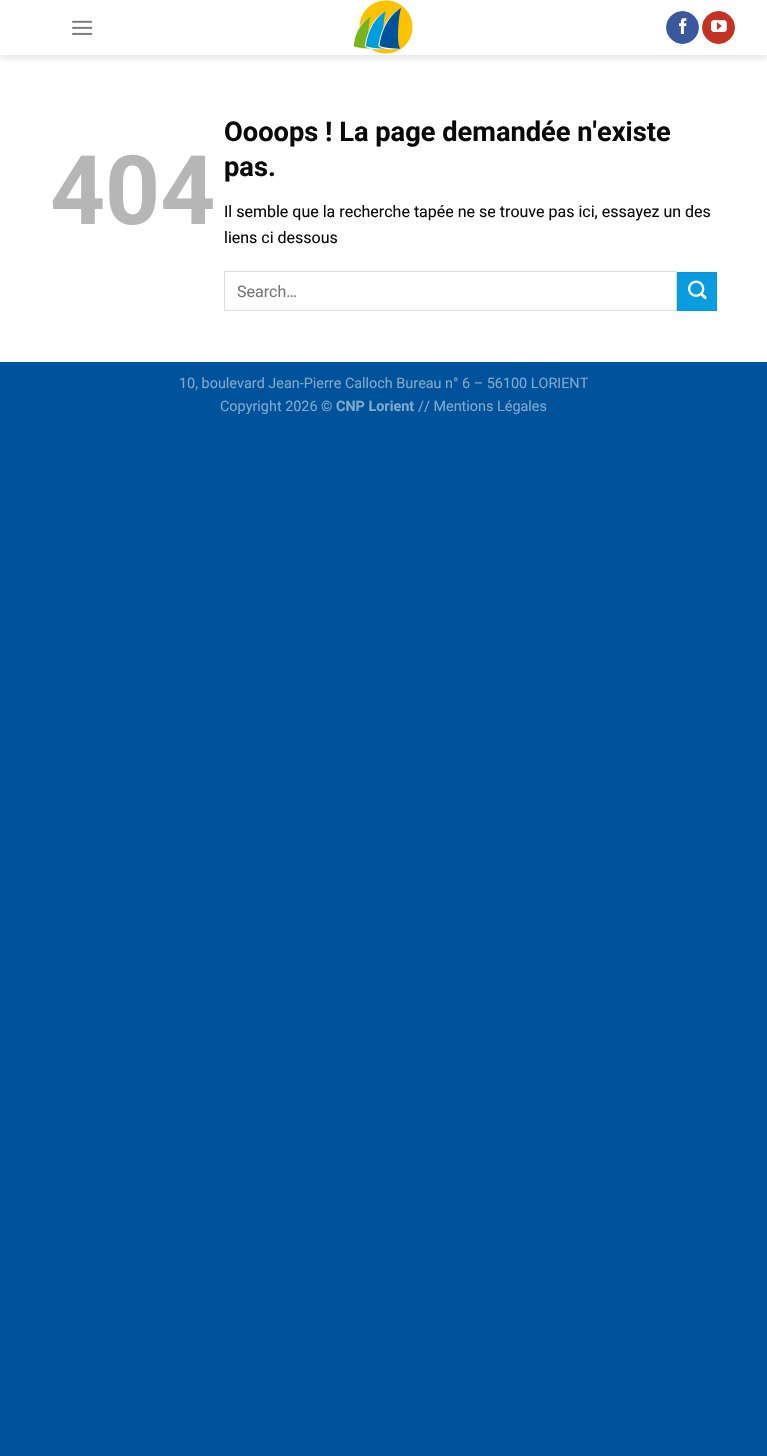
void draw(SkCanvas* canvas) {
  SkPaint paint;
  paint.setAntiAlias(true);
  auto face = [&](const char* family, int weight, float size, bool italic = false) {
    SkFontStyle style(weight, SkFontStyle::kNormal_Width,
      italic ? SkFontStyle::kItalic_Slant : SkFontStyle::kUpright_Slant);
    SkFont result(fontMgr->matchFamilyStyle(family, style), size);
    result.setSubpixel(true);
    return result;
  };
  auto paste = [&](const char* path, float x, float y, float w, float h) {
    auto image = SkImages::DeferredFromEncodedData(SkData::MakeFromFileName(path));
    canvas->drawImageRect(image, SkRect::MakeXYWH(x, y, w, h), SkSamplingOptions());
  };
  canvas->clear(0xff00529b);
  paint.setColor(0xffffffff);
  canvas->drawRect(SkRect::MakeXYWH(0, 0, 767, 362), paint);
  canvas->save();
  canvas->clipRect(SkRect::MakeXYWH(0, 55, 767, 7));
  paint.setColor(0x26000000);
  paint.setMaskFilter(SkMaskFilter::MakeBlur(kNormal_SkBlurStyle, 5));
  canvas->drawRect(SkRect::MakeXYWH(1, 1, 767, 55), paint);
  paint.setMaskFilter(nullptr);
  canvas->restore();
  paste("img/1.png", 72, 20, 21, 15);
  paste("img/2.png", 353, 0, 60, 54);
  paint.setColor(0xff3a589d);
  canvas->drawCircle(682.5f, 27.5f, 16, paint);
  paint.setStroke(true);
  paint.setStrokeWidth(1);
  canvas->drawCircle(682.5f, 27.5f, 16, paint);
  paste("img/3.png", 678, 18, 9, 16);
  paint.setStroke(false);
  paint.setColor(0xffc33223);
  canvas->drawCircle(718.5f, 27.5f, 16, paint);
  paint.setStroke(true);
  canvas->drawCircle(718.5f, 27.5f, 16, paint);
  paste("img/4.png", 711, 20, 16, 12);
  paint.setColor(0xffdddddd);
  canvas->drawRect(SkRect::MakeXYWH(224.5f, 271.5f, 452, 39), paint);
  paint.setStroke(false);
  paint.setColor(0xff099ddf);
  canvas->drawRect(SkRect::MakeXYWH(677.5f, 272.5f, 39, 38), paint);
  paint.setStroke(true);
  paint.setColor(0xff0995d4);
  canvas->drawRect(SkRect::MakeXYWH(677.5f, 272.5f, 39, 38), paint);
  paste("img/5.png", 688, 280, 19, 20);
  auto f0 = face("Roboto", 700, 96);
  paint.setStroke(false);
  paint.setColor(0xffb6b6b6);
  canvas->drawString("404", 50, 224, f0, paint);
  auto f1 = face("Roboto", 700, 27.25f);
  paint.setColor(0xff0a0a0a);
  canvas->drawString("Oooops ! La page demandée n'existe", 224, 141, f1, paint);
  canvas->drawString("pas.", 224, 176, f1, paint);
  auto f2 = face("Roboto", 400, 16);
  canvas->drawString("Il semble que la recherche tapée ne se trouve pas ici, essayez un des", 224, 217, f2, paint);
  canvas->drawString("liens ci dessous", 224, 243, f2, paint);
  paint.setColor(0xff757575);
  canvas->drawString("Search…", 237, 297, f2, paint);
  auto f3 = face("Roboto", 400, 14.4f);
  paint.setColor(0xff80a9cd);
  canvas->drawString("10, boulevard Jean-Pierre Calloch Bureau n° 6 – 56100 LORIENT", 179, 388, f3, paint);
  canvas->drawString("Copyright 2026 ©", 220, 411, f3, paint);
  auto f4 = face("Roboto", 700, 14.4f);
  canvas->drawString("CNP Lorient", 336, 411, f4, paint);
  canvas->drawString("// Mentions Légales", 418, 411, f3, paint);
}
